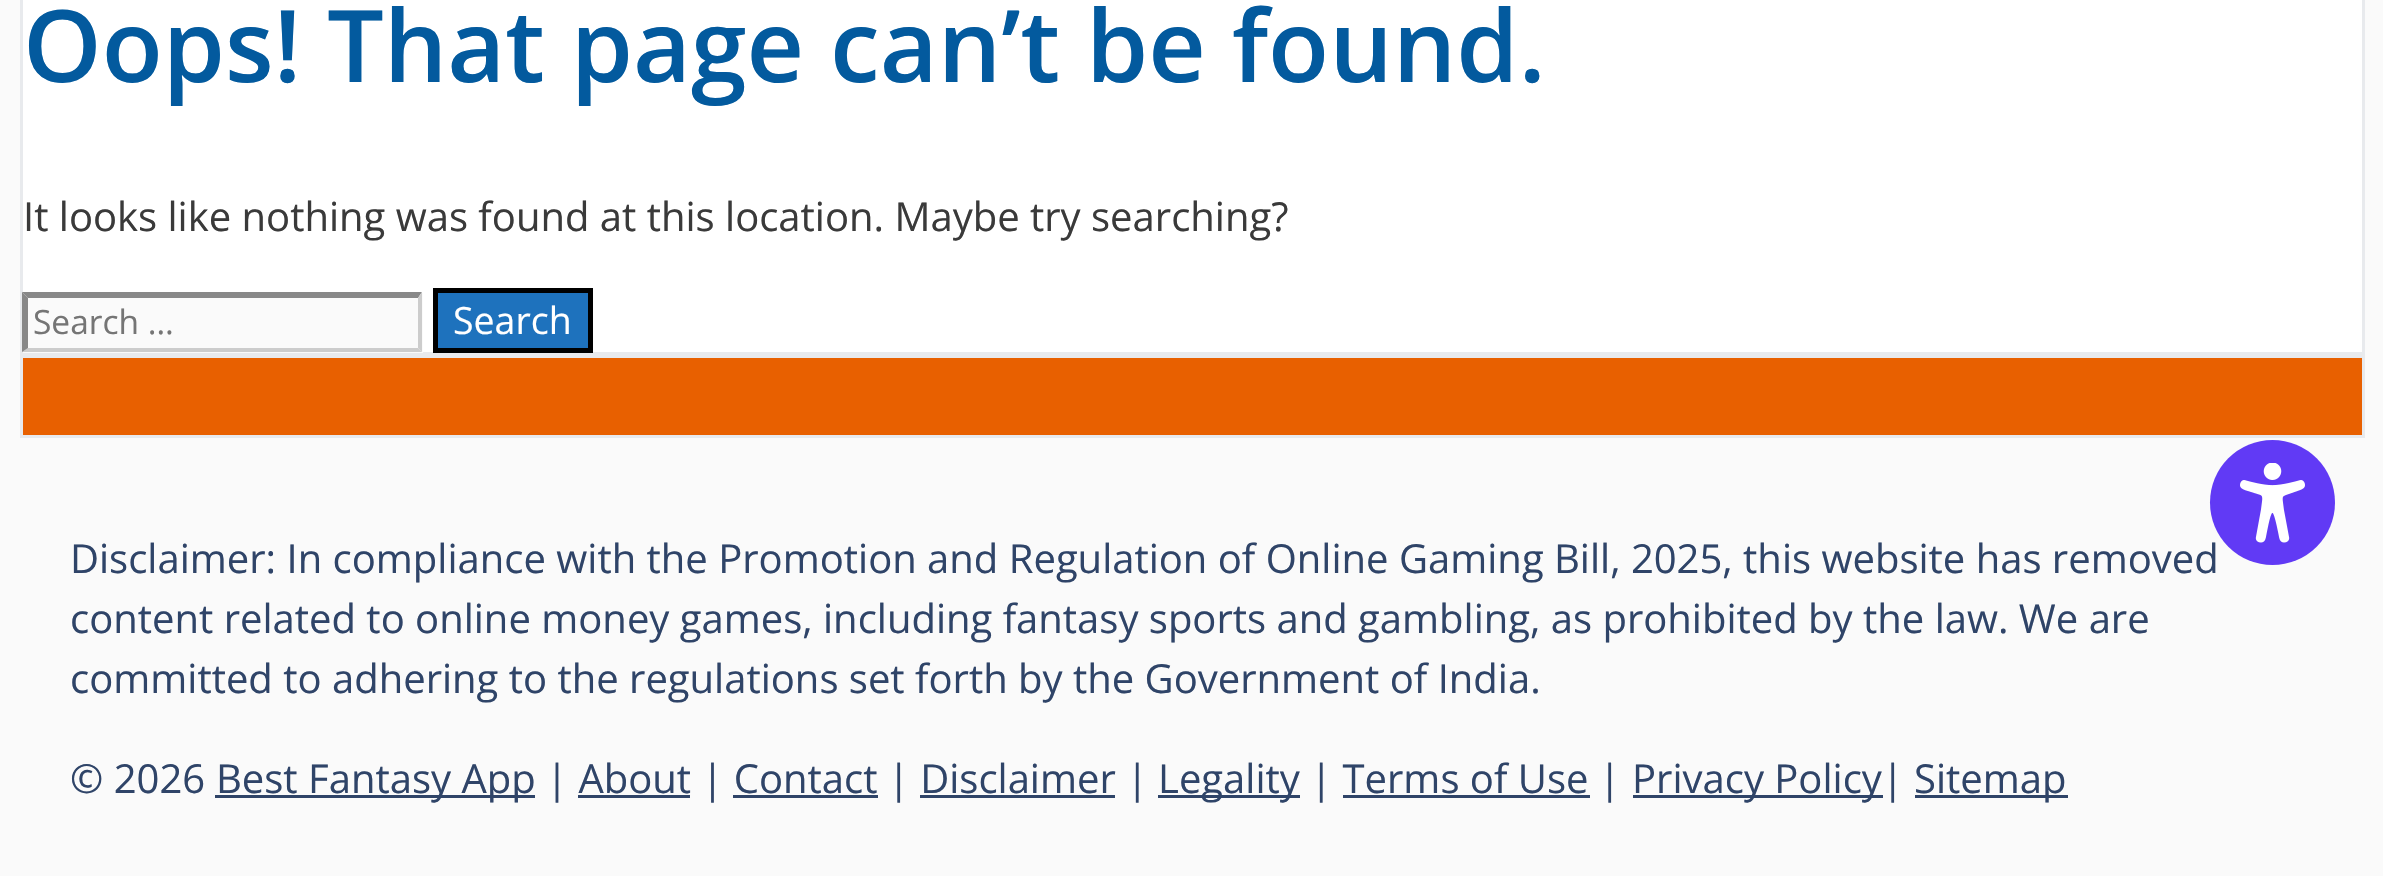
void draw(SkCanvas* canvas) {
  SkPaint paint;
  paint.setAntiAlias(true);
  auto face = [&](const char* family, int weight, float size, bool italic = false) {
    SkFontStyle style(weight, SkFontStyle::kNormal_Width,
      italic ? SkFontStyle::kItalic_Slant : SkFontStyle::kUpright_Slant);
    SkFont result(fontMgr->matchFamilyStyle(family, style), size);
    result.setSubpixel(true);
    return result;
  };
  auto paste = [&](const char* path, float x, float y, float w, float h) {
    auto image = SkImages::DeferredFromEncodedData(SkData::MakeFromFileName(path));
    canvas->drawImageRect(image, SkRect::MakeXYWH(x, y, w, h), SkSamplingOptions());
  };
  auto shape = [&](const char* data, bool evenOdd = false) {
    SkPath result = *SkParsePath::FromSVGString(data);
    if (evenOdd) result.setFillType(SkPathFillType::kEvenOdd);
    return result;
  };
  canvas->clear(0xfffafafa);
  paint.setColor(0xffffffff);
  canvas->drawRect(SkRect::MakeXYWH(21.5f, -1.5f, 2342, 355), paint);
  paint.setStroke(true);
  paint.setStrokeWidth(3);
  paint.setColor(0xffe8eaed);
  canvas->drawRect(SkRect::MakeXYWH(21.5f, -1.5f, 2342, 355), paint);
  paint.setStroke(false);
  paint.setColor(0xfffafafa);
  canvas->drawRect(SkRect::MakeXYWH(23, 293, 400, 60), paint);
  paint.setColor(0xff888888);
  canvas->drawPath(shape("M22 292H422L418 298H28Z"), paint);
  paint.setColor(0xffcccccc);
  canvas->drawPath(shape("M422 292V352L418 348V298Z"), paint);
  canvas->drawPath(shape("M422 352H22L28 348H418Z"), paint);
  paint.setColor(0xff888888);
  canvas->drawPath(shape("M22 352V292L28 298V348Z"), paint);
  paint.setColor(0xff1e72bd);
  canvas->drawRect(SkRect::MakeXYWH(435.5f, 290.5f, 155, 60), paint);
  paint.setStroke(true);
  paint.setStrokeWidth(5);
  paint.setColor(0xff000000);
  canvas->drawRect(SkRect::MakeXYWH(435.5f, 290.5f, 155, 60), paint);
  paint.setStroke(false);
  paint.setColor(0xffe86000);
  canvas->drawRect(SkRect::MakeXYWH(21.5f, 356.5f, 2342, 80), paint);
  paint.setStroke(true);
  paint.setStrokeWidth(3);
  paint.setColor(0xffe8eaed);
  canvas->drawRect(SkRect::MakeXYWH(21.5f, 356.5f, 2342, 80), paint);
  paint.setStroke(false);
  {
    const struct { float x, y, w, h; SkColor color; } items[] = {
      {215, 795, 320, 3, 0xff2f4468},
      {1158, 795, 142, 3, 0xff2f4468},
      {1633, 795, 250, 3, 0xff2f4468},
      {1915, 795, 153, 3, 0xff2f4468},
      {578, 795, 112, 3, 0xff2f4468},
      {733, 795, 145, 3, 0xff2f4468},
      {920, 795, 195, 3, 0xff2f4468},
      {1343, 795, 247, 3, 0xff2f4468},
    };
    for (auto [x, y, w, h, color] : items) {
      paint.setColor(color);
      canvas->drawRect(SkRect::MakeXYWH(x, y, w, h), paint);
    }
  }
  auto f0 = face("Open Sans", 600, 100);
  paint.setColor(0xff035a9e);
  canvas->drawString("Oops! That page can’t be found.", 23, 82, f0, paint);
  auto f1 = face("Open Sans", 400, 40);
  paint.setColor(0xff3a3a3a);
  canvas->drawString("It looks like nothing was found at this location. Maybe try searching?", 23, 231, f1, paint);
  auto f2 = face("Open Sans", 400, 33.5f);
  paint.setColor(0xff757575);
  canvas->drawString("Search …", 33, 334, f2, paint);
  auto f3 = face("Open Sans", 400, 37.5f);
  paint.setColor(0xffffffff);
  canvas->drawString("Search", 453, 334, f3, paint);
  paint.setColor(0xff2f4468);
  canvas->drawString("Disclaimer: In compliance with the Promotion and Regulation of Online Gaming Bill, 2025, this website has removed", 70, 573, f1, paint);
  paint.setColor(0xff613af5);
  canvas->drawCircle(2272.5f, 502.5f, 62.5f, paint);
  paste("img/1.png", 2240, 463, 65, 80);
  paint.setColor(0xff2f4468);
  {
    const struct { const char* s; float x, y; } items[] = {
      {"content related to online money games, including fantasy sports and gambling, as prohibited by the law. We are", 70, 633},
      {"committed to adhering to the regulations set forth by the Government of India.", 70, 693},
      {"© 2026", 70, 793},
      {"Best Fantasy App | About | Contact | Disclaimer |", 216, 793},
      {"Legality | Terms of Use |", 1158, 793},
      {"Privacy Policy|", 1632, 793},
      {"Sitemap", 1914, 793},
    };
    for (auto [s, x, y] : items) {
      canvas->drawString(s, x, y, f1, paint);
    }
  }
}
